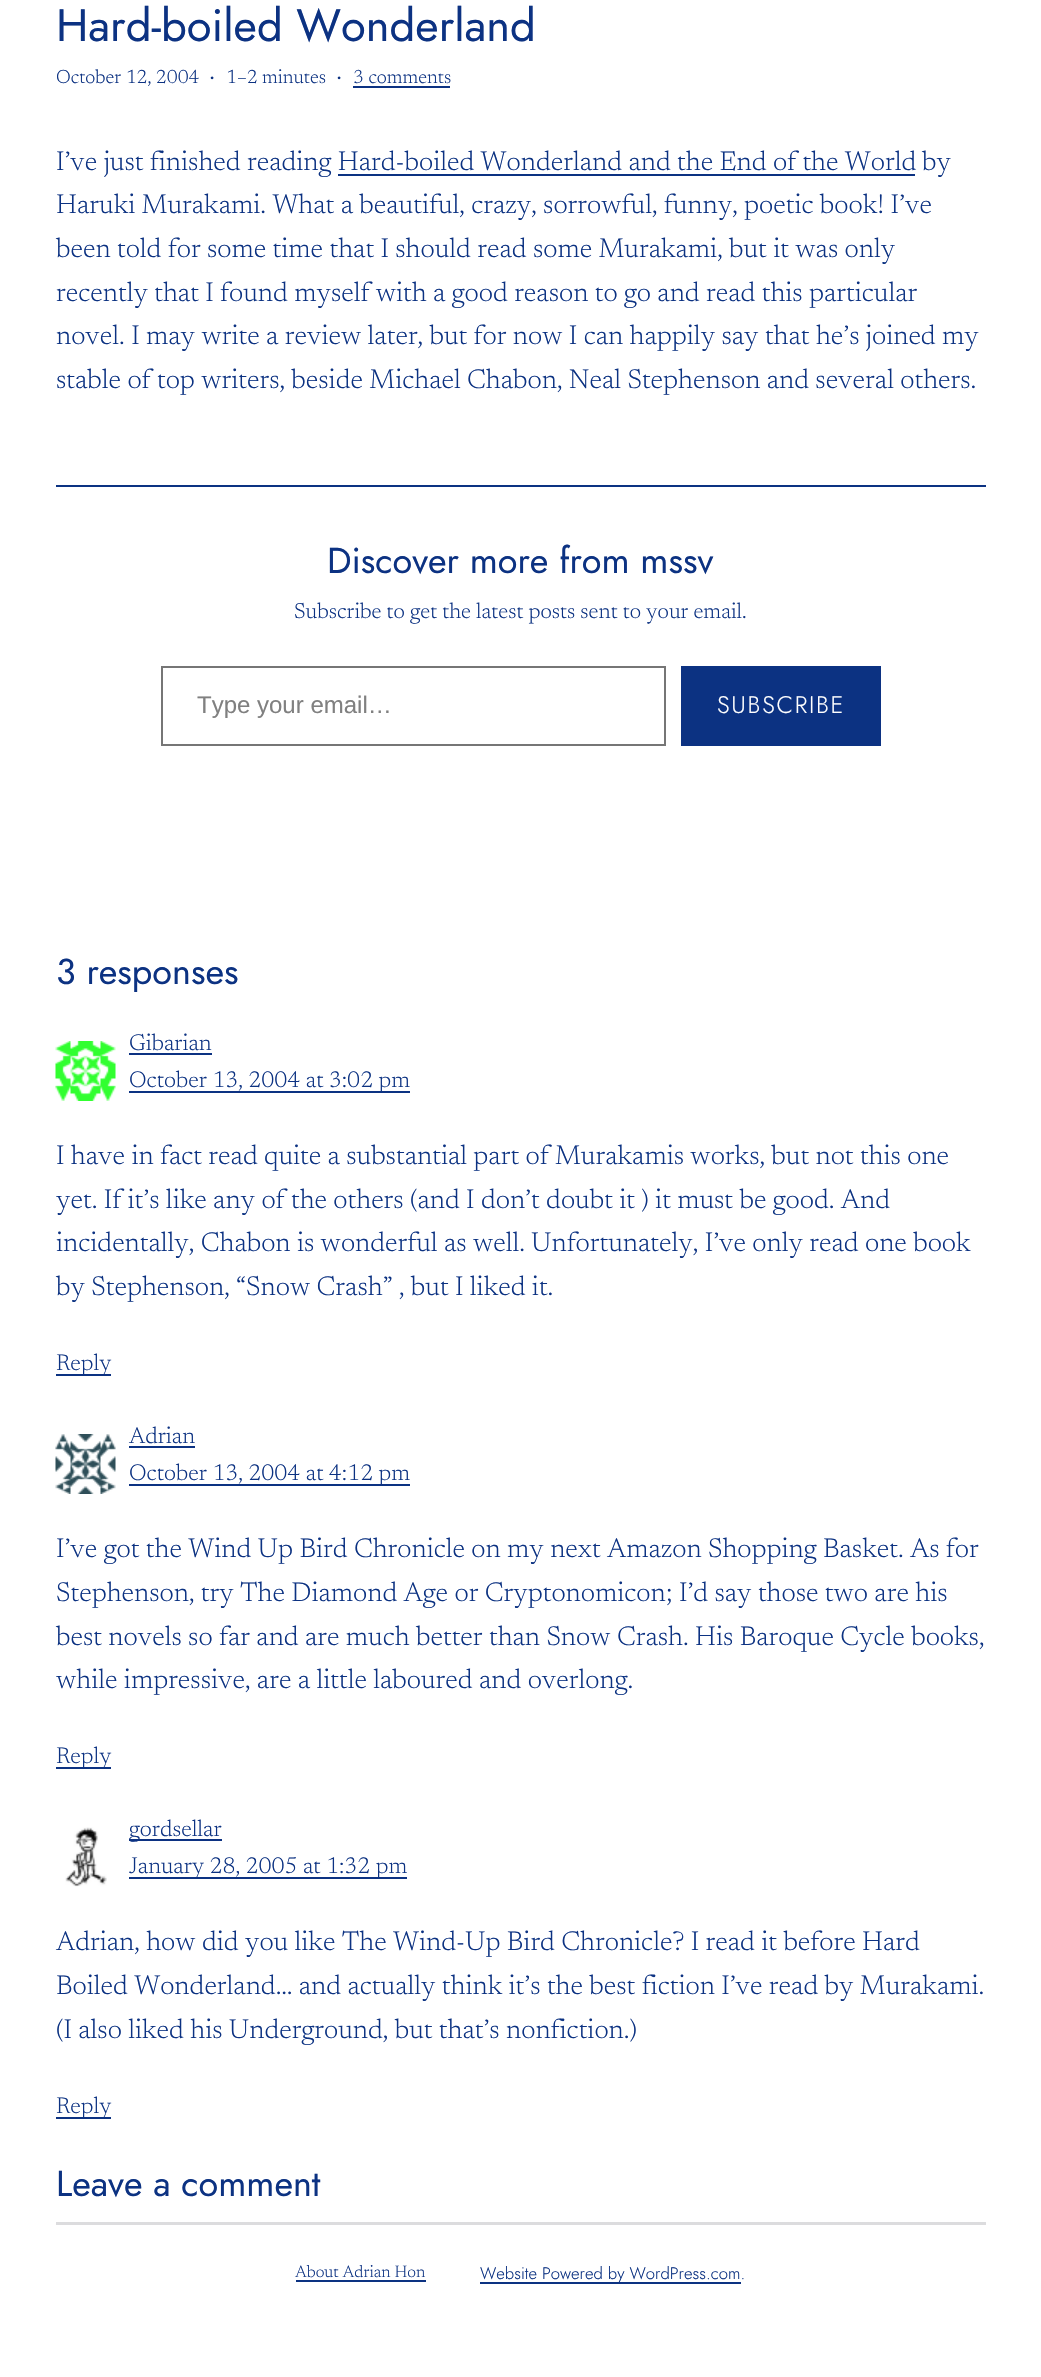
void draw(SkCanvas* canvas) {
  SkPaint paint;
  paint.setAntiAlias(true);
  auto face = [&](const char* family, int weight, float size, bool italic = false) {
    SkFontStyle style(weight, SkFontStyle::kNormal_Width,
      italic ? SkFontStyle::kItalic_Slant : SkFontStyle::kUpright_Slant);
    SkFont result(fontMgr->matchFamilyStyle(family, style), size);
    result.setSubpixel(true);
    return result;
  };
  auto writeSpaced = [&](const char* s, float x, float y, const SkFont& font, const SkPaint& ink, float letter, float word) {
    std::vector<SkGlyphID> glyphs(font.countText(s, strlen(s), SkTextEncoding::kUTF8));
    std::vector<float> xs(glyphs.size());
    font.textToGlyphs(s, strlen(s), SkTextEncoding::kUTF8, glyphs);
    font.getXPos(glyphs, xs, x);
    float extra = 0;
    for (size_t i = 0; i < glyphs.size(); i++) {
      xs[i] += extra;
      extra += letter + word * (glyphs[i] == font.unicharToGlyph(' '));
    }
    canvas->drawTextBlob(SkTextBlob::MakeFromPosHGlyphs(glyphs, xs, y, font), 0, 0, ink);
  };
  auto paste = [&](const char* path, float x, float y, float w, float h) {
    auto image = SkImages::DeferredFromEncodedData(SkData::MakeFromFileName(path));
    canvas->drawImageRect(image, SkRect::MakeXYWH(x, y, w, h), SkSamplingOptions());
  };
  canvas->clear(0xffffffff);
  {
    const struct { float x, y, w, h; SkColor color; } items[] = {
      {353, 86, 97, 2, 0xff0c3282},
      {338, 174, 577, 2, 0xff0c3282},
      {56, 485, 930, 2, 0xff0c3282},
    };
    for (auto [x, y, w, h, color] : items) {
      paint.setColor(color);
      canvas->drawRect(SkRect::MakeXYWH(x, y, w, h), paint);
    }
  }
  paint.setStroke(true);
  paint.setStrokeWidth(2);
  paint.setColor(0xff767676);
  canvas->drawRect(SkRect::MakeXYWH(162, 667, 503, 78), paint);
  paint.setStroke(false);
  paint.setColor(0xff0c3282);
  canvas->drawRect(SkRect::MakeXYWH(681, 666, 200, 80), paint);
  paste("img/1.png", 55, 1041, 61, 60);
  {
    const struct { float x, y, w, h; SkColor color; } items[] = {
      {129, 1053, 83, 2, 0xff0c3282},
      {129, 1091, 281, 2, 0xff0c3282},
      {56, 1374, 55, 2, 0xff0c3282},
    };
    for (auto [x, y, w, h, color] : items) {
      paint.setColor(color);
      canvas->drawRect(SkRect::MakeXYWH(x, y, w, h), paint);
    }
  }
  paste("img/2.png", 55, 1434, 61, 60);
  {
    const struct { float x, y, w, h; SkColor color; } items[] = {
      {129, 1446, 66, 2, 0xff0c3282},
      {129, 1484, 281, 2, 0xff0c3282},
      {56, 1767, 55, 2, 0xff0c3282},
    };
    for (auto [x, y, w, h, color] : items) {
      paint.setColor(color);
      canvas->drawRect(SkRect::MakeXYWH(x, y, w, h), paint);
    }
  }
  paste("img/3.png", 65, 1827, 42, 60);
  {
    const struct { float x, y, w, h; SkColor color; } items[] = {
      {129, 1839, 93, 2, 0xff0c3282},
      {129, 1877, 278, 2, 0xff0c3282},
      {56, 2117, 55, 2, 0xff0c3282},
      {56, 2222, 930, 3, 0xffdcdcde},
      {296, 2280, 130, 2, 0xff0c3282},
      {480, 2282, 261, 2, 0xff0c3282},
    };
    for (auto [x, y, w, h, color] : items) {
      paint.setColor(color);
      canvas->drawRect(SkRect::MakeXYWH(x, y, w, h), paint);
    }
  }
  auto f0 = face("Jost", 400, 45.25f);
  canvas->drawString("Hard-boiled Wonderland", 56, 41, f0, paint);
  auto f1 = face("Newsreader", 300, 19.25f);
  canvas->drawString("October 12, 2004", 56, 83, f1, paint);
  auto f2 = face("Newsreader", 300, 27.3f);
  canvas->drawString("·", 209, 84, f2, paint);
  canvas->drawString("1–2 minutes", 226, 83, f1, paint);
  canvas->drawString("·", 336, 84, f2, paint);
  canvas->drawString("3 comments", 353, 83, f1, paint);
  {
    const struct { const char* s; float x, y; } items[] = {
      {"I’ve just finished reading Hard-boiled Wonderland and the End of the World", 56, 170},
      {"by", 922, 170},
      {"Haruki Murakami. What a beautiful, crazy, sorrowful, funny, poetic book! I’ve", 56, 213},
      {"been told for some time that I should read some Murakami, but it was only", 56, 257},
      {"recently that I found myself with a good reason to go and read this particular", 56, 301},
      {"novel. I may write a review later, but for now I can happily say that he’s joined my", 56, 344},
      {"stable of top writers, beside Michael Chabon, Neal Stephenson and several others.", 56, 388},
    };
    for (auto [s, x, y] : items) {
      canvas->drawString(s, x, y, f2, paint);
    }
  }
  auto f3 = face("Jost", 400, 36);
  canvas->drawString("Discover more from mssv", 327, 573, f3, paint);
  auto f4 = face("Newsreader", 300, 21.8f);
  canvas->drawString("Subscribe to get the latest posts sent to your email.", 294, 618, f4, paint);
  auto f5 = face("Liberation Sans", 400, 24);
  paint.setColor(0xff808080);
  canvas->drawString("Type your email…", 197, 713, f5, paint);
  auto f6 = face("Jost", 300, 24);
  paint.setColor(0xffffffff);
  writeSpaced("SUBSCRIBE", 717, 713, f6, paint, 1.75f, 0);
  paint.setColor(0xff0c3282);
  canvas->drawString("3 responses", 56, 984, f3, paint);
  auto f7 = face("Newsreader", 300, 23);
  canvas->drawString("Gibarian", 129, 1050, f7, paint);
  canvas->drawString("October 13, 2004 at 3:02 pm", 129, 1087, f7, paint);
  {
    const struct { const char* s; float x, y; } items[] = {
      {"I have in fact read quite a substantial part of Murakamis works, but not this one", 56, 1164},
      {"yet. If it’s like any of the others (and I don’t doubt it ) it must be good. And", 56, 1208},
      {"incidentally, Chabon is wonderful as well.", 56, 1251},
      {"Unfortunately, I’ve only read one book", 531, 1251},
      {"by Stephenson, “Snow Crash” , but I liked it.", 56, 1295},
    };
    for (auto [s, x, y] : items) {
      canvas->drawString(s, x, y, f2, paint);
    }
  }
  {
    const struct { const char* s; float x, y; } items[] = {
      {"Reply", 56, 1370},
      {"Adrian", 129, 1443},
      {"October 13, 2004 at 4:12 pm", 129, 1480},
    };
    for (auto [s, x, y] : items) {
      canvas->drawString(s, x, y, f7, paint);
    }
  }
  {
    const struct { const char* s; float x, y; } items[] = {
      {"I’ve got the Wind Up Bird Chronicle on my next Amazon Shopping Basket. As for", 56, 1557},
      {"Stephenson, try The Diamond Age or Cryptonomicon; I’d say those two are his", 56, 1601},
      {"best novels so far and are much better than Snow Crash. His Baroque Cycle books,", 56, 1645},
      {"while impressive, are a little laboured and overlong.", 56, 1688},
    };
    for (auto [s, x, y] : items) {
      canvas->drawString(s, x, y, f2, paint);
    }
  }
  {
    const struct { const char* s; float x, y; } items[] = {
      {"Reply", 56, 1763},
      {"gordsellar", 129, 1836},
      {"January 28, 2005 at 1:32 pm", 129, 1873},
    };
    for (auto [s, x, y] : items) {
      canvas->drawString(s, x, y, f7, paint);
    }
  }
  {
    const struct { const char* s; float x, y; } items[] = {
      {"Adrian, how did you like The Wind-Up Bird Chronicle? I read it before Hard", 56, 1950},
      {"Boiled Wonderland… and actually think it’s the best fiction I’ve read by Murakami.", 56, 1994},
      {"(I also liked his Underground, but that’s nonfiction.)", 56, 2038},
    };
    for (auto [s, x, y] : items) {
      canvas->drawString(s, x, y, f2, paint);
    }
  }
  canvas->drawString("Reply", 56, 2113, f7, paint);
  canvas->drawString("Leave a comment", 56, 2196, f3, paint);
  auto f8 = face("Newsreader", 300, 16.75f);
  canvas->drawString("About Adrian Hon", 295, 2277, f8, paint);
  auto f9 = face("Jost", 300, 16.75f);
  canvas->drawString("Website Powered by WordPress.com.", 480, 2279, f9, paint);
}
